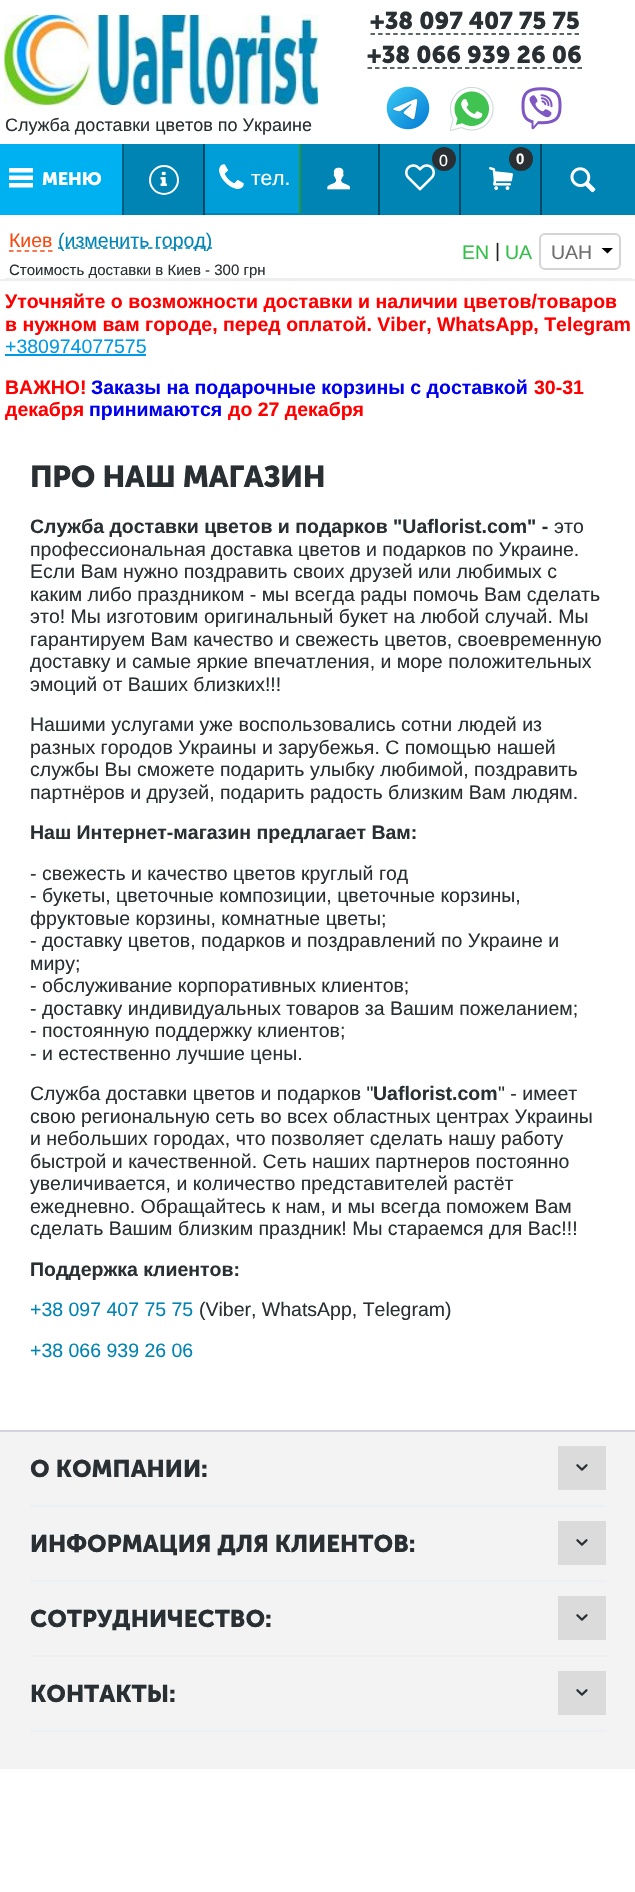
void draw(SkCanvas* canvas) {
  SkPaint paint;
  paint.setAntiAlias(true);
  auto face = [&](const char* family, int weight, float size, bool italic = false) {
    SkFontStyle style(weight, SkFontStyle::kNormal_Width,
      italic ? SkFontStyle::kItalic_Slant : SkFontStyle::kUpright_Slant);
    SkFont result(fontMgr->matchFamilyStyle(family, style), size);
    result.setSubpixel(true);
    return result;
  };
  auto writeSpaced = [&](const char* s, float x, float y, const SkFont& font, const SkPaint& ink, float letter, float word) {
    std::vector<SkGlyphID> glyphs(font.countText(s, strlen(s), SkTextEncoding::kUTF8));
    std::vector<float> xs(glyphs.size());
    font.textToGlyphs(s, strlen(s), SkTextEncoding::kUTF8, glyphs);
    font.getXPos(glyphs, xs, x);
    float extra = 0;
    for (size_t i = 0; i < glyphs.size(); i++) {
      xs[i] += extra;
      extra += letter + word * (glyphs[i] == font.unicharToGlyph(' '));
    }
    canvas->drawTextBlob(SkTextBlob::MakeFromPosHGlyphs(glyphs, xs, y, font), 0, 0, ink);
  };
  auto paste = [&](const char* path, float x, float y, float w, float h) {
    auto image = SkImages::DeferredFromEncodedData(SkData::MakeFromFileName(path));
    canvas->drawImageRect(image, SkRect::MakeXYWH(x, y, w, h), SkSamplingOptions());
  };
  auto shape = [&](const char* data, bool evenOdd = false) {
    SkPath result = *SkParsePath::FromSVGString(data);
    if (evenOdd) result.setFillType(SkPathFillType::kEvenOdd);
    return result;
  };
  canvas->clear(0xffffffff);
  paint.setStroke(true);
  paint.setStrokeWidth(1.5f);
  paint.setColor(0xff292f33);
  paint.setPathEffect(SkDashPathEffect::Make({{4.5f, 3.06f}}, 0));
  canvas->drawPath(shape("M370.5 34H579"), paint);
  paint.setPathEffect(nullptr);
  paint.setPathEffect(SkDashPathEffect::Make({{4.5f, 3}}, 0));
  canvas->drawPath(shape("M367.5 68H582"), paint);
  paint.setPathEffect(nullptr);
  paste("img/1.png", 386, 86, 44, 44);
  paste("img/2.png", 450, 86, 44, 45);
  paste("img/3.png", 521, 87, 41, 43);
  paste("img/4.png", 4, 15, 314, 90);
  paint.setStroke(false);
  {
    const struct { float x, y, w, h; SkColor color; } items[] = {
      {124, 144, 511, 71, 0xff0084b4},
      {0, 144, 122, 71, 0xff00b1f1},
      {122, 144, 2, 71, 0xff005f81},
    };
    for (auto [x, y, w, h, color] : items) {
      paint.setColor(color);
      canvas->drawRect(SkRect::MakeXYWH(x, y, w, h), paint);
    }
  }
  paste("img/5.png", 9, 168, 24, 20);
  paint.setColor(0xff004964);
  canvas->drawRect(SkRect::MakeXYWH(203, 144, 2, 71), paint);
  paint.setStroke(true);
  paint.setStrokeWidth(2);
  paint.setColor(0xffffffff);
  canvas->drawCircle(164, 180, 14, paint);
  paste("img/6.png", 160, 171, 7, 15);
  paint.setStroke(false);
  paint.setColor(0xff004964);
  canvas->drawRect(SkRect::MakeXYWH(378, 144, 2, 71), paint);
  paste("img/7.png", 327, 167, 23, 23);
  canvas->drawRect(SkRect::MakeXYWH(459, 144, 2, 71), paint);
  paste("img/8.png", 405, 164, 30, 27);
  paint.setColor(0xff292f33);
  canvas->drawCircle(444, 159, 12, paint);
  paste("img/9.png", 489, 167, 24, 23);
  canvas->drawCircle(521, 159, 12, paint);
  paint.setColor(0xff004964);
  canvas->drawRect(SkRect::MakeXYWH(540, 144, 2, 71), paint);
  paste("img/10.png", 570, 167, 26, 26);
  paint.setColor(0xff009ed8);
  canvas->drawRect(SkRect::MakeXYWH(205, 144, 94, 69), paint);
  paint.setColor(0xff29973a);
  canvas->drawRect(SkRect::MakeXYWH(299, 144, 2, 69), paint);
  paste("img/11.png", 219, 164, 25, 25);
  paint.setColor(0xffeeeeee);
  canvas->drawRect(SkRect::MakeXYWH(0, 279, 635, 2), paint);
  canvas->drawRect(SkRect::MakeXYWH(5, 278, 627, 1), paint);
  paint.setStroke(true);
  paint.setStrokeWidth(1.5f);
  paint.setColor(0xfff64b12);
  paint.setPathEffect(SkDashPathEffect::Make({{4.5f, 3.3f}}, 0));
  canvas->drawPath(shape("M9 251H52.5"), paint);
  paint.setPathEffect(nullptr);
  paint.setColor(0xff0084b4);
  paint.setPathEffect(SkDashPathEffect::Make({{4.5f, 3}}, 0));
  canvas->drawPath(shape("M58 248H212"), paint);
  paint.setPathEffect(nullptr);
  paint.setStrokeWidth(2);
  paint.setColor(0xffd5d5d5);
  canvas->drawRoundRect(SkRect::MakeXYWH(540, 234, 80, 35), 5, 5, paint);
  paint.setStroke(false);
  paint.setColor(0xff000000);
  canvas->drawPath(shape("M607.5 253.5L601.5 248H613Z"), paint);
  {
    const struct { float x, y, w, h; SkColor color; } items[] = {
      {5, 354, 141, 2, 0xff0099e5},
      {0, 1432, 635, 337, 0xfff3f3f3},
      {0, 1430, 635, 2, 0xffd1d4dc},
      {30, 1505, 576, 2, 0xffeeeff2},
      {558, 1446, 48, 44, 0xffdbdbdb},
    };
    for (auto [x, y, w, h, color] : items) {
      paint.setColor(color);
      canvas->drawRect(SkRect::MakeXYWH(x, y, w, h), paint);
    }
  }
  paste("img/12.png", 576, 1464, 12, 7);
  paint.setColor(0xffeeeff2);
  canvas->drawRect(SkRect::MakeXYWH(30, 1580, 576, 2), paint);
  paint.setColor(0xffdbdbdb);
  canvas->drawRect(SkRect::MakeXYWH(558, 1521, 48, 44), paint);
  paste("img/12.png", 576, 1539, 12, 7);
  paint.setColor(0xffeeeff2);
  canvas->drawRect(SkRect::MakeXYWH(30, 1655, 576, 2), paint);
  paint.setColor(0xffdbdbdb);
  canvas->drawRect(SkRect::MakeXYWH(558, 1596, 48, 44), paint);
  paste("img/12.png", 576, 1614, 12, 7);
  paint.setColor(0xffeeeff2);
  canvas->drawRect(SkRect::MakeXYWH(30, 1730, 576, 2), paint);
  paint.setColor(0xffdbdbdb);
  canvas->drawRect(SkRect::MakeXYWH(558, 1671, 48, 44), paint);
  paste("img/12.png", 576, 1689, 12, 7);
  auto f0 = face("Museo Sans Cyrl", 700, 24);
  paint.setColor(0xff292f33);
  canvas->drawString("+38 097 407 75 75", 370, 29, f0, paint);
  canvas->drawString("+38 066 939 26 06", 367, 63, f0, paint);
  auto f1 = face("Liberation Sans", 400, 18);
  canvas->drawString("Служба доставки цветов по Украине", 5, 131, f1, paint);
  auto f2 = face("Museo Sans Cyrl", 700, 18);
  paint.setColor(0xffffffff);
  canvas->drawString("МЕНЮ", 42, 185, f2, paint);
  auto f3 = face("Liberation Sans", 400, 16);
  canvas->drawString("0", 439, 166, f3, paint);
  auto f4 = face("Liberation Sans", 700, 15);
  canvas->drawString("0", 516, 164, f4, paint);
  auto f5 = face("Liberation Sans", 400, 21);
  canvas->drawString("тел.", 251, 185, f5, paint);
  auto f6 = face("Liberation Sans", 400, 19.5f);
  paint.setColor(0xfff64b12);
  canvas->drawString("Киев", 9, 247, f6, paint);
  paint.setColor(0xff0084b4);
  canvas->drawString("(изменить город)", 58, 247, f6, paint);
  auto f7 = face("Liberation Sans", 400, 15);
  paint.setColor(0xff292f33);
  canvas->drawString("Стоимость доставки в Киев - 300 грн", 9, 275, f7, paint);
  paint.setColor(0xff34bf49);
  canvas->drawString("EN", 462, 259, f6, paint);
  paint.setColor(0xff222222);
  canvas->drawString("|", 495, 257, f6, paint);
  paint.setColor(0xff34bf49);
  canvas->drawString("UA", 505, 259, f6, paint);
  paint.setColor(0xff6e6e6e);
  canvas->drawString("UAH", 551, 259, f6, paint);
  auto f8 = face("Liberation Sans", 700, 19.5f);
  paint.setColor(0xffff0000);
  canvas->drawString("Уточняйте о возможности доставки и наличии цветов/товаров", 5, 308, f8, paint);
  canvas->drawString("в нужном вам городе, перед оплатой. Viber, WhatsApp, Telegram", 5, 331, f8, paint);
  paint.setColor(0xff0099e5);
  canvas->drawString("+380974077575", 5, 353, f6, paint);
  paint.setColor(0xffff0000);
  canvas->drawString("ВАЖНО!", 5, 394, f8, paint);
  paint.setColor(0xff0000ef);
  canvas->drawString("Заказы на подарочные корзины с доставкой", 91, 394, f8, paint);
  paint.setColor(0xffff0000);
  canvas->drawString("30-31", 534, 394, f8, paint);
  canvas->drawString("декабря", 5, 416, f8, paint);
  paint.setColor(0xff0000ef);
  canvas->drawString("принимаются", 89, 416, f8, paint);
  paint.setColor(0xffff0000);
  canvas->drawString("до 27 декабря", 228, 416, f8, paint);
  auto f9 = face("Museo Sans Cyrl", 700, 30);
  paint.setColor(0xff292f33);
  writeSpaced("ПРО НАШ МАГАЗИН", 30, 487, f9, paint, -0.25f, 0);
  canvas->drawString("Служба доставки цветов и подарков \"Uaflorist.com\" -", 30, 533, f8, paint);
  {
    const struct { const char* s; float x, y; } items[] = {
      {"это", 554, 533},
      {"профессиональная доставка цветов и подарков по Украине.", 30, 556},
      {"Если Вам нужно поздравить своих друзей или любимых с", 30, 578},
      {"каким либо праздником - мы всегда рады помочь Вам сделать", 30, 601},
      {"это! Мы изготовим оригинальный букет на любой случай. Мы", 30, 623},
      {"гарантируем Вам качество и свежесть цветов, своевременную", 30, 646},
      {"доставку и самые яркие впечатления, и море положительных", 30, 668},
      {"эмоций от Ваших близких!!!", 30, 691},
      {"Нашими услугами уже воспользовались сотни людей из", 30, 731},
      {"разных городов Украины и зарубежья. С помощью нашей", 30, 754},
      {"службы Вы сможете подарить улыбку любимой, поздравить", 30, 776},
      {"партнёров и друзей, подарить радость близким Вам людям.", 30, 799},
    };
    for (auto [s, x, y] : items) {
      canvas->drawString(s, x, y, f6, paint);
    }
  }
  canvas->drawString("Наш Интернет-магазин предлагает Вам:", 30, 839, f8, paint);
  {
    const struct { const char* s; float x, y; } items[] = {
      {"- свежесть и качество цветов круглый год", 30, 880},
      {"- букеты, цветочные композиции, цветочные корзины,", 30, 902},
      {"фруктовые корзины, комнатные цветы;", 30, 925},
      {"- доставку цветов, подарков и поздравлений по Украине и", 30, 947},
      {"миру;", 30, 970},
      {"- обслуживание корпоративных клиентов;", 30, 992},
      {"- доставку индивидуальных товаров за Вашим пожеланием;", 30, 1015},
      {"- постоянную поддержку клиентов;", 30, 1037},
      {"- и естественно лучшие цены.", 30, 1060},
      {"Служба доставки цветов и подарков \"", 30, 1100},
    };
    for (auto [s, x, y] : items) {
      canvas->drawString(s, x, y, f6, paint);
    }
  }
  canvas->drawString("Uaflorist.com", 373, 1100, f8, paint);
  {
    const struct { const char* s; float x, y; } items[] = {
      {"\" - имеет", 498, 1100},
      {"свою региональную сеть во всех областных центрах Украины", 30, 1123},
      {"и небольших городах, что позволяет сделать нашу работу", 30, 1145},
      {"быстрой и качественной. Сеть наших партнеров постоянно", 30, 1168},
      {"увеличивается, и количество представителей растёт", 30, 1190},
      {"ежедневно. Обращайтесь к нам, и мы всегда поможем Вам", 30, 1213},
      {"сделать Вашим близким праздник! Мы стараемся для Вас!!!", 30, 1235},
    };
    for (auto [s, x, y] : items) {
      canvas->drawString(s, x, y, f6, paint);
    }
  }
  canvas->drawString("Поддержка клиентов:", 30, 1276, f8, paint);
  paint.setColor(0xff0084b4);
  canvas->drawString("+38 097 407 75 75", 30, 1316, f6, paint);
  paint.setColor(0xff292f33);
  canvas->drawString("(Viber, WhatsApp, Telegram)", 199, 1316, f6, paint);
  paint.setColor(0xff0084b4);
  canvas->drawString("+38 066 939 26 06", 30, 1357, f6, paint);
  paint.setColor(0xff292f33);
  {
    const struct { const char* s; float x, y; } items[] = {
      {"О КОМПАНИИ:", 30, 1477},
      {"ИНФОРМАЦИЯ ДЛЯ КЛИЕНТОВ:", 30, 1552},
      {"СОТРУДНИЧЕСТВО:", 30, 1627},
      {"КОНТАКТЫ:", 30, 1702},
    };
    for (auto [s, x, y] : items) {
      canvas->drawString(s, x, y, f0, paint);
    }
  }
}
